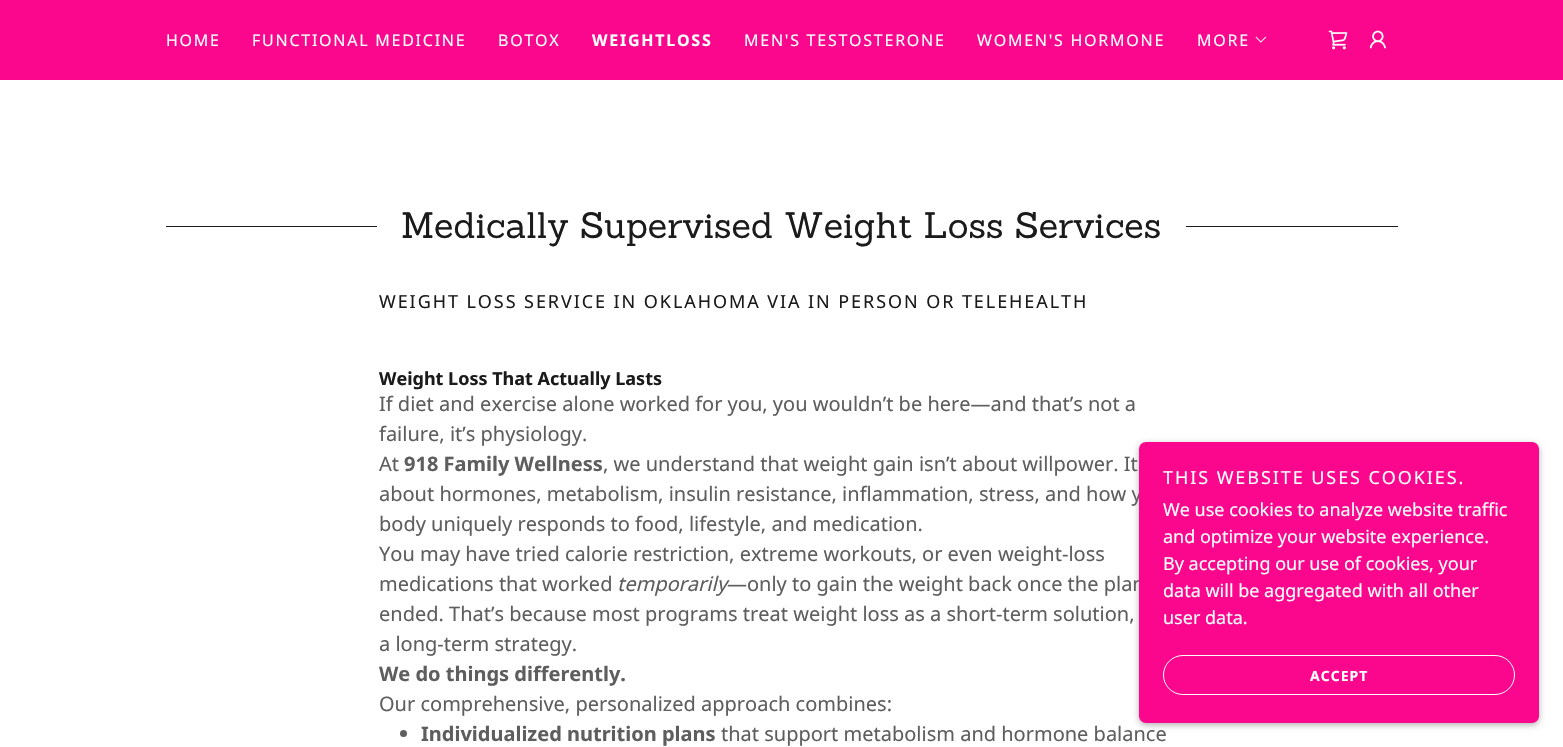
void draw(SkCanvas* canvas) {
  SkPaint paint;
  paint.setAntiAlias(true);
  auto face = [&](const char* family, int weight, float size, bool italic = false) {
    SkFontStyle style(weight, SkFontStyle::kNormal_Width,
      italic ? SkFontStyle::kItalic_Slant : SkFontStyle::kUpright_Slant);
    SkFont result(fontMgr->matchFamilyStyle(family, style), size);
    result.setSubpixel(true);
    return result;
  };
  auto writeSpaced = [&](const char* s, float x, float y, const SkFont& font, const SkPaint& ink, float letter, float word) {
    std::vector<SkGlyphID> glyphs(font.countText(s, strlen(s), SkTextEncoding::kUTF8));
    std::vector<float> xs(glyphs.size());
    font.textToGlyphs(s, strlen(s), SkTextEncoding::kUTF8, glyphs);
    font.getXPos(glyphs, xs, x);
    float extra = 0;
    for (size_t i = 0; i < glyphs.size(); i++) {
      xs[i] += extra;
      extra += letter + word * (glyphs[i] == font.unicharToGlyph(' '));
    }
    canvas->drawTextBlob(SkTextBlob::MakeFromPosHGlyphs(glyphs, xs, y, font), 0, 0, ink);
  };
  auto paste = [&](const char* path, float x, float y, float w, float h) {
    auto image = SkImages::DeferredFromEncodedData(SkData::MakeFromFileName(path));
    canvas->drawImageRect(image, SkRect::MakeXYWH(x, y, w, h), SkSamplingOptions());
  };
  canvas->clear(0xffffffff);
  paint.setColor(0xfffa078d);
  canvas->drawRect(SkRect::MakeXYWH(0, 0, 1563, 80), paint);
  paste("img/1.png", 1255, 36, 12, 7);
  paste("img/2.png", 1328, 30, 20, 20);
  paste("img/3.png", 1369, 30, 17, 19);
  paint.setColor(0xff1b1b1b);
  canvas->drawRect(SkRect::MakeXYWH(166, 226, 211, 1), paint);
  canvas->drawRect(SkRect::MakeXYWH(1186, 226, 212, 1), paint);
  paint.setColor(0xff5e5e5e);
  canvas->drawCircle(403.5f, 733.5f, 3.5f, paint);
  paint.setColor(0x4d000000);
  paint.setMaskFilter(SkMaskFilter::MakeBlur(kNormal_SkBlurStyle, 3));
  canvas->drawRoundRect(SkRect::MakeXYWH(1139, 444, 400, 281), 7, 7, paint);
  paint.setMaskFilter(nullptr);
  auto f0 = face("Noto Sans", 400, 16);
  paint.setColor(0xffffffff);
  {
    const struct { const char* s; float x, y; } items[] = {
      {"HOME", 166, 46},
      {"FUNCTIONAL MEDICINE", 252, 46},
      {"BOTOX", 498, 46},
    };
    for (auto [s, x, y] : items) {
      writeSpaced(s, x, y, f0, paint, 1.75f, 0);
    }
  }
  auto f1 = face("Noto Sans", 700, 16);
  writeSpaced("WEIGHTLOSS", 592, 46, f1, paint, 1.75f, 0);
  {
    const struct { const char* s; float x, y; } items[] = {
      {"MEN'S TESTOSTERONE", 744, 46},
      {"WOMEN'S HORMONE", 977, 46},
      {"MORE", 1197, 46},
    };
    for (auto [s, x, y] : items) {
      writeSpaced(s, x, y, f0, paint, 1.75f, 0);
    }
  }
  auto f2 = face("Sanchez", 400, 36);
  paint.setColor(0xff1b1b1b);
  canvas->drawString("Medically Supervised Weight Loss Services", 401, 238, f2, paint);
  auto f3 = face("Noto Sans", 400, 18);
  writeSpaced("WEIGHT LOSS SERVICE IN OKLAHOMA VIA IN PERSON OR TELEHEALTH", 379, 308, f3, paint, 1.93f, 0);
  auto f4 = face("Noto Sans", 700, 18);
  canvas->drawString("Weight Loss That Actually Lasts", 379, 385, f4, paint);
  auto f5 = face("Noto Sans", 400, 20);
  paint.setColor(0xff5e5e5e);
  {
    const struct { const char* s; float x, y; } items[] = {
      {"If diet and exercise alone worked for you, you wouldn’t be here—and that’s not a", 379, 411},
      {"failure, it’s physiology.", 379, 441},
      {"At", 379, 471},
    };
    for (auto [s, x, y] : items) {
      canvas->drawString(s, x, y, f5, paint);
    }
  }
  auto f6 = face("Noto Sans", 700, 20);
  canvas->drawString("918 Family Wellness", 404, 471, f6, paint);
  {
    const struct { const char* s; float x, y; } items[] = {
      {", we understand that weight gain isn’t about willpower. It", 603, 471},
      {"about hormones, metabolism, insulin resistance, inflammation, stress, and how y", 379, 501},
      {"body uniquely responds to food, lifestyle, and medication.", 379, 531},
      {"You may have tried calorie restriction, extreme workouts, or even weight-loss", 379, 561},
      {"medications that worked", 379, 591},
    };
    for (auto [s, x, y] : items) {
      canvas->drawString(s, x, y, f5, paint);
    }
  }
  auto f7 = face("Noto Sans", 400, 20, true);
  canvas->drawString("temporarily", 617, 591, f7, paint);
  {
    const struct { const char* s; float x, y; } items[] = {
      {"—only to gain the weight back once the plan", 727, 591},
      {"ended. That’s because most programs treat weight loss as a short-term solution,", 379, 621},
      {"a long-term strategy.", 379, 651},
    };
    for (auto [s, x, y] : items) {
      canvas->drawString(s, x, y, f5, paint);
    }
  }
  canvas->drawString("We do things differently.", 379, 681, f6, paint);
  canvas->drawString("Our comprehensive, personalized approach combines:", 379, 711, f5, paint);
  canvas->drawString("Individualized nutrition plans", 421, 741, f6, paint);
  canvas->drawString("that support metabolism and hormone balance", 721, 741, f5, paint);
  paint.setColor(0xfffa078d);
  canvas->drawRoundRect(SkRect::MakeXYWH(1139, 442, 400, 281), 7, 7, paint);
  paint.setColor(0xffffffff);
  writeSpaced("THIS WEBSITE USES COOKIES.", 1163, 484, f3, paint, 1.93f, 0);
  {
    const struct { const char* s; float x, y; } items[] = {
      {"We use cookies to analyze website traffic", 1163, 516},
      {"and optimize your website experience.", 1163, 543},
      {"By accepting our use of cookies, your", 1163, 570},
      {"data will be aggregated with all other", 1163, 597},
      {"user data.", 1163, 624},
    };
    for (auto [s, x, y] : items) {
      canvas->drawString(s, x, y, f3, paint);
    }
  }
  paint.setStroke(true);
  paint.setStrokeWidth(1);
  canvas->drawRoundRect(SkRect::MakeXYWH(1163.5f, 655.5f, 351, 39), 19.5f, 19.5f, paint);
  auto f8 = face("Noto Sans", 700, 14);
  paint.setStroke(false);
  writeSpaced("ACCEPT", 1310, 681, f8, paint, 1, 0);
}
